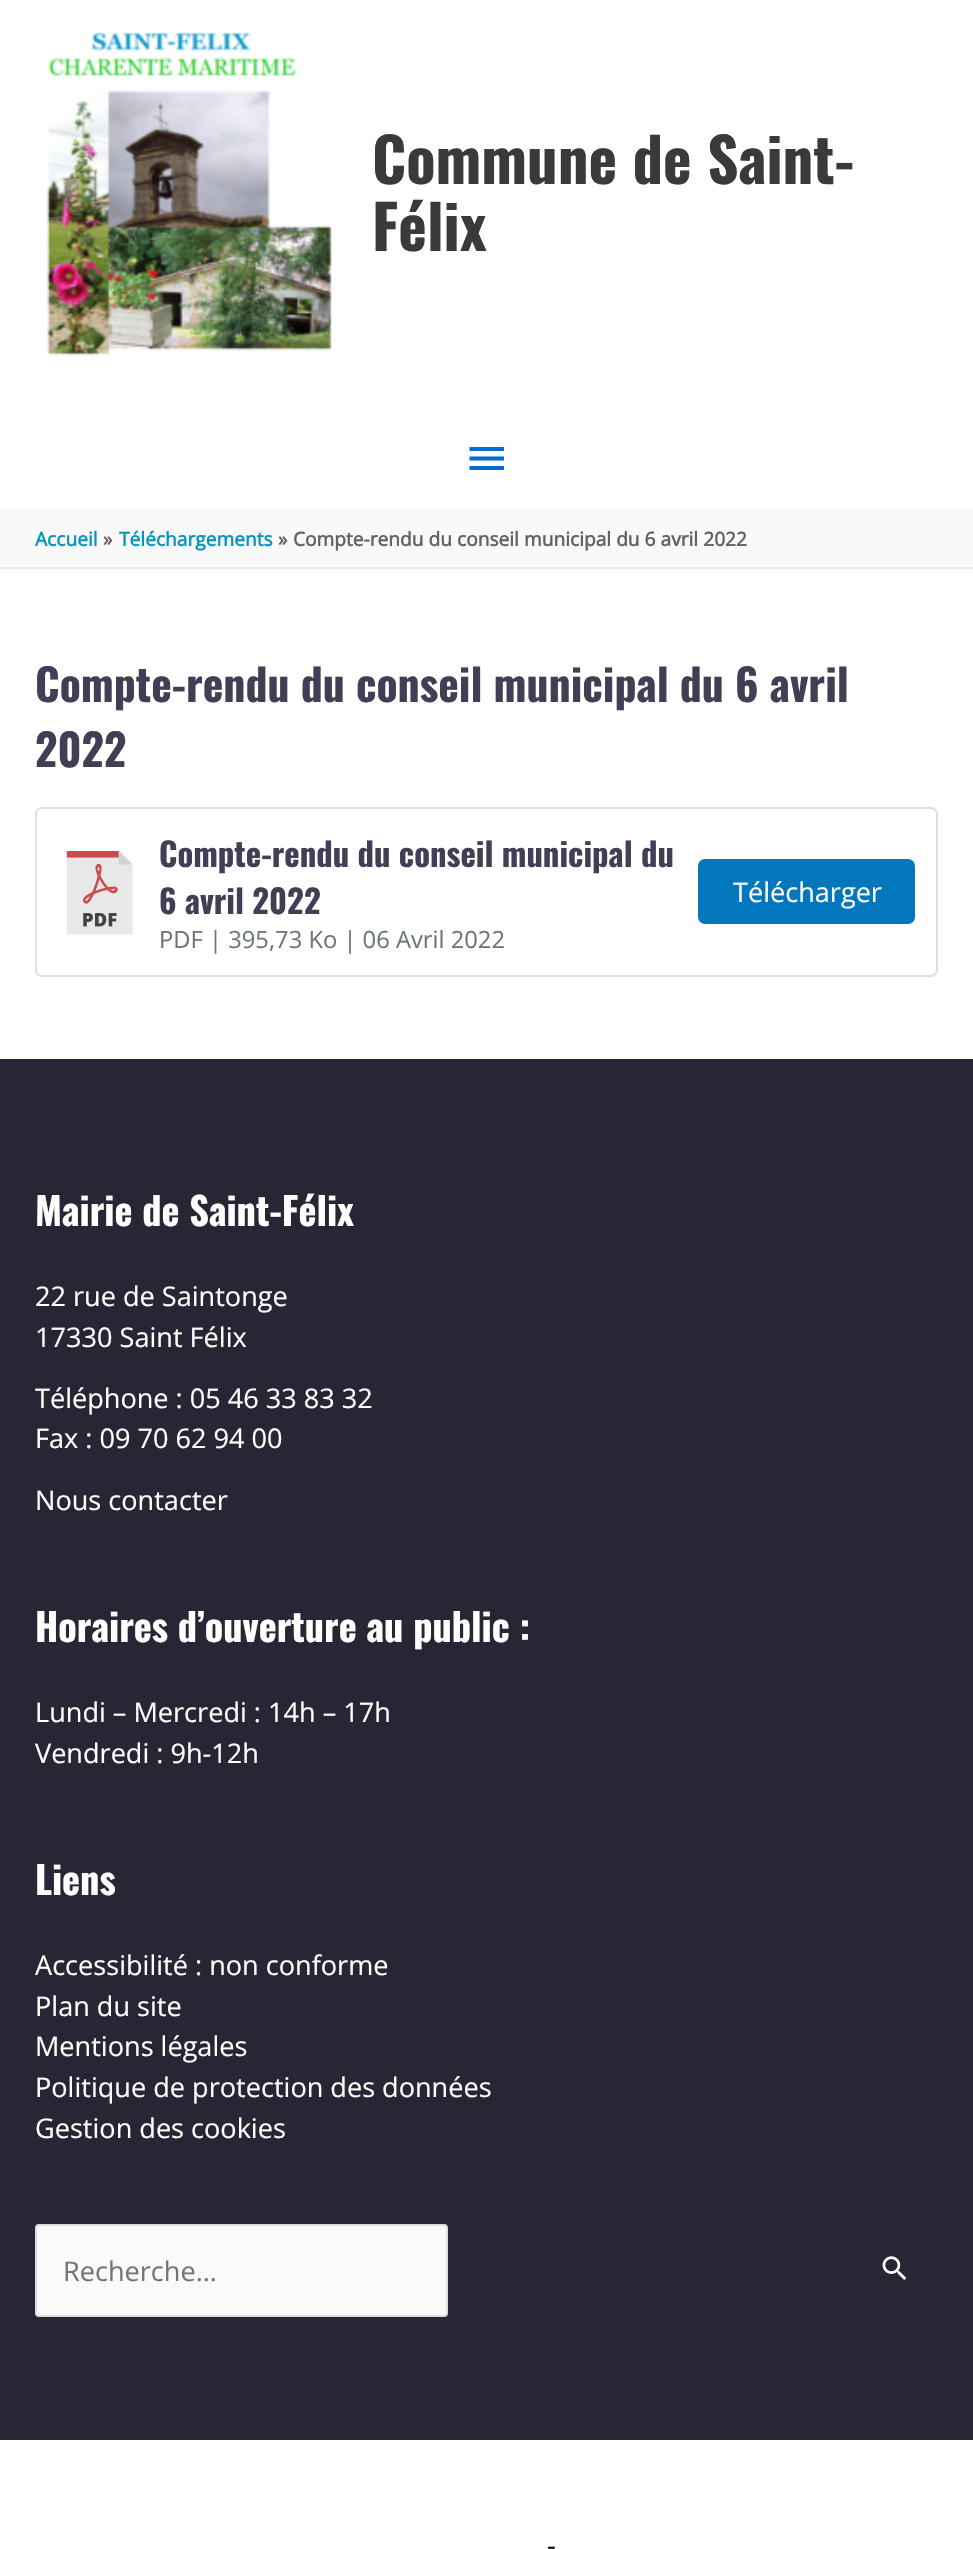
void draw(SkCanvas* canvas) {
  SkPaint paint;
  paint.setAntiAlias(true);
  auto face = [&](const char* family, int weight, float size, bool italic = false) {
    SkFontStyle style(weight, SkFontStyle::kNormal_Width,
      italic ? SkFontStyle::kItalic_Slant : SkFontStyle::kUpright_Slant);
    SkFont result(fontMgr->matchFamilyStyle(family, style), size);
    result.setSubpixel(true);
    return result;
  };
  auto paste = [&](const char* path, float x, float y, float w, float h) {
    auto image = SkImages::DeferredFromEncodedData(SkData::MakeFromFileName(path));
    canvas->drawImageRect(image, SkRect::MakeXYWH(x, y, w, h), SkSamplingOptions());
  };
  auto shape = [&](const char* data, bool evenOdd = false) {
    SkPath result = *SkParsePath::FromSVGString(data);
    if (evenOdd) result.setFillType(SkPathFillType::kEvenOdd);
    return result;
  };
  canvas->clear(0xffffffff);
  paste("img/1.png", 46, 31, 286, 325);
  paint.setColor(0xff086cca);
  canvas->drawPath(shape("M469.5 447H504V451H469.5ZM469.5 460.5V456.5H504V460.5ZM469.5 470V466H504V470Z"), paint);
  paint.setColor(0xfff9f9f9);
  canvas->drawRect(SkRect::MakeXYWH(0, 508, 973, 59), paint);
  paint.setColor(0xffeaeaea);
  canvas->drawRect(SkRect::MakeXYWH(0, 567, 973, 2), paint);
  paint.setStroke(true);
  paint.setStrokeWidth(2);
  paint.setColor(0xffdfdfdf);
  canvas->drawRoundRect(SkRect::MakeXYWH(36, 808, 901, 168), 6, 6, paint);
  paste("img/2.png", 66, 851, 67, 84);
  paint.setStroke(false);
  paint.setColor(0xff0277bd);
  canvas->drawRoundRect(SkRect::MakeXYWH(698, 859, 217, 65), 7, 7, paint);
  paint.setColor(0xff282534);
  canvas->drawRect(SkRect::MakeXYWH(0, 1059, 973, 1381), paint);
  paint.setColor(0xfffafafa);
  canvas->drawRoundRect(SkRect::MakeXYWH(36, 2225, 411, 91), 3, 3, paint);
  paint.setStroke(true);
  paint.setColor(0xffdddddd);
  canvas->drawRoundRect(SkRect::MakeXYWH(36, 2225, 411, 91), 3, 3, paint);
  paste("img/3.png", 882, 2256, 25, 24);
  auto f0 = face("Oswald", 700, 60.75f);
  paint.setStroke(false);
  paint.setColor(0xff3a3a3a);
  canvas->drawString("Commune de Saint-", 372, 184, f0, paint);
  canvas->drawString("Félix", 372, 251, f0, paint);
  auto f1 = face("Open Sans", 700, 19.15f);
  paint.setColor(0xff0896bc);
  canvas->drawString("Accueil", 35, 546, f1, paint);
  paint.setColor(0xff636363);
  canvas->drawString("»", 103, 546, f1, paint);
  paint.setColor(0xff0896bc);
  canvas->drawString("Téléchargements", 119, 546, f1, paint);
  paint.setColor(0xff636363);
  canvas->drawString("»", 278, 546, f1, paint);
  canvas->drawString("Compte-rendu du conseil municipal du 6 avril 2022", 293, 546, f1, paint);
  auto f2 = face("Oswald", 700, 43.75f);
  paint.setColor(0xff423e56);
  canvas->drawString("Compte-rendu du conseil municipal du 6 avril", 35, 702, f2, paint);
  canvas->drawString("2022", 35, 767, f2, paint);
  auto f3 = face("Oswald", 700, 32.7f);
  canvas->drawString("Compte-rendu du conseil municipal du", 159, 867, f3, paint);
  canvas->drawString("6 avril 2022", 159, 914, f3, paint);
  auto f4 = face("Open Sans", 400, 27.1f);
  paint.setColor(0xffffffff);
  canvas->drawString("Télécharger", 733, 902, f4, paint);
  auto f5 = face("Open Sans", 400, 23.75f);
  paint.setColor(0xff6c757d);
  canvas->drawString("PDF | 395,73 Ko | 06 Avril 2022", 159, 948, f5, paint);
  auto f6 = face("Oswald", 700, 38.25f);
  paint.setColor(0xffffffff);
  canvas->drawString("Mairie de Saint-Félix", 35, 1226, f6, paint);
  {
    const struct { const char* s; float x, y; } items[] = {
      {"22 rue de Saintonge", 35, 1306},
      {"17330 Saint Félix", 35, 1347},
      {"Téléphone : 05 46 33 83 32", 35, 1408},
      {"Fax : 09 70 62 94 00", 35, 1448},
      {"Nous contacter", 35, 1510},
    };
    for (auto [s, x, y] : items) {
      canvas->drawString(s, x, y, f4, paint);
    }
  }
  canvas->drawString("Horaires d’ouverture au public :", 35, 1642, f6, paint);
  canvas->drawString("Lundi – Mercredi : 14h – 17h", 35, 1722, f4, paint);
  canvas->drawString("Vendredi : 9h-12h", 35, 1763, f4, paint);
  canvas->drawString("Liens", 35, 1895, f6, paint);
  {
    const struct { const char* s; float x, y; } items[] = {
      {"Accessibilité : non conforme", 35, 1975},
      {"Plan du site", 35, 2016},
      {"Mentions légales", 35, 2056},
      {"Politique de protection des données", 35, 2097},
      {"Gestion des cookies", 35, 2138},
    };
    for (auto [s, x, y] : items) {
      canvas->drawString(s, x, y, f4, paint);
    }
  }
  paint.setColor(0xff757575);
  canvas->drawString("Recherche…", 63, 2281, f4, paint);
  paint.setColor(0xff000000);
  canvas->drawString("-", 547, 2555, f4, paint);
}
